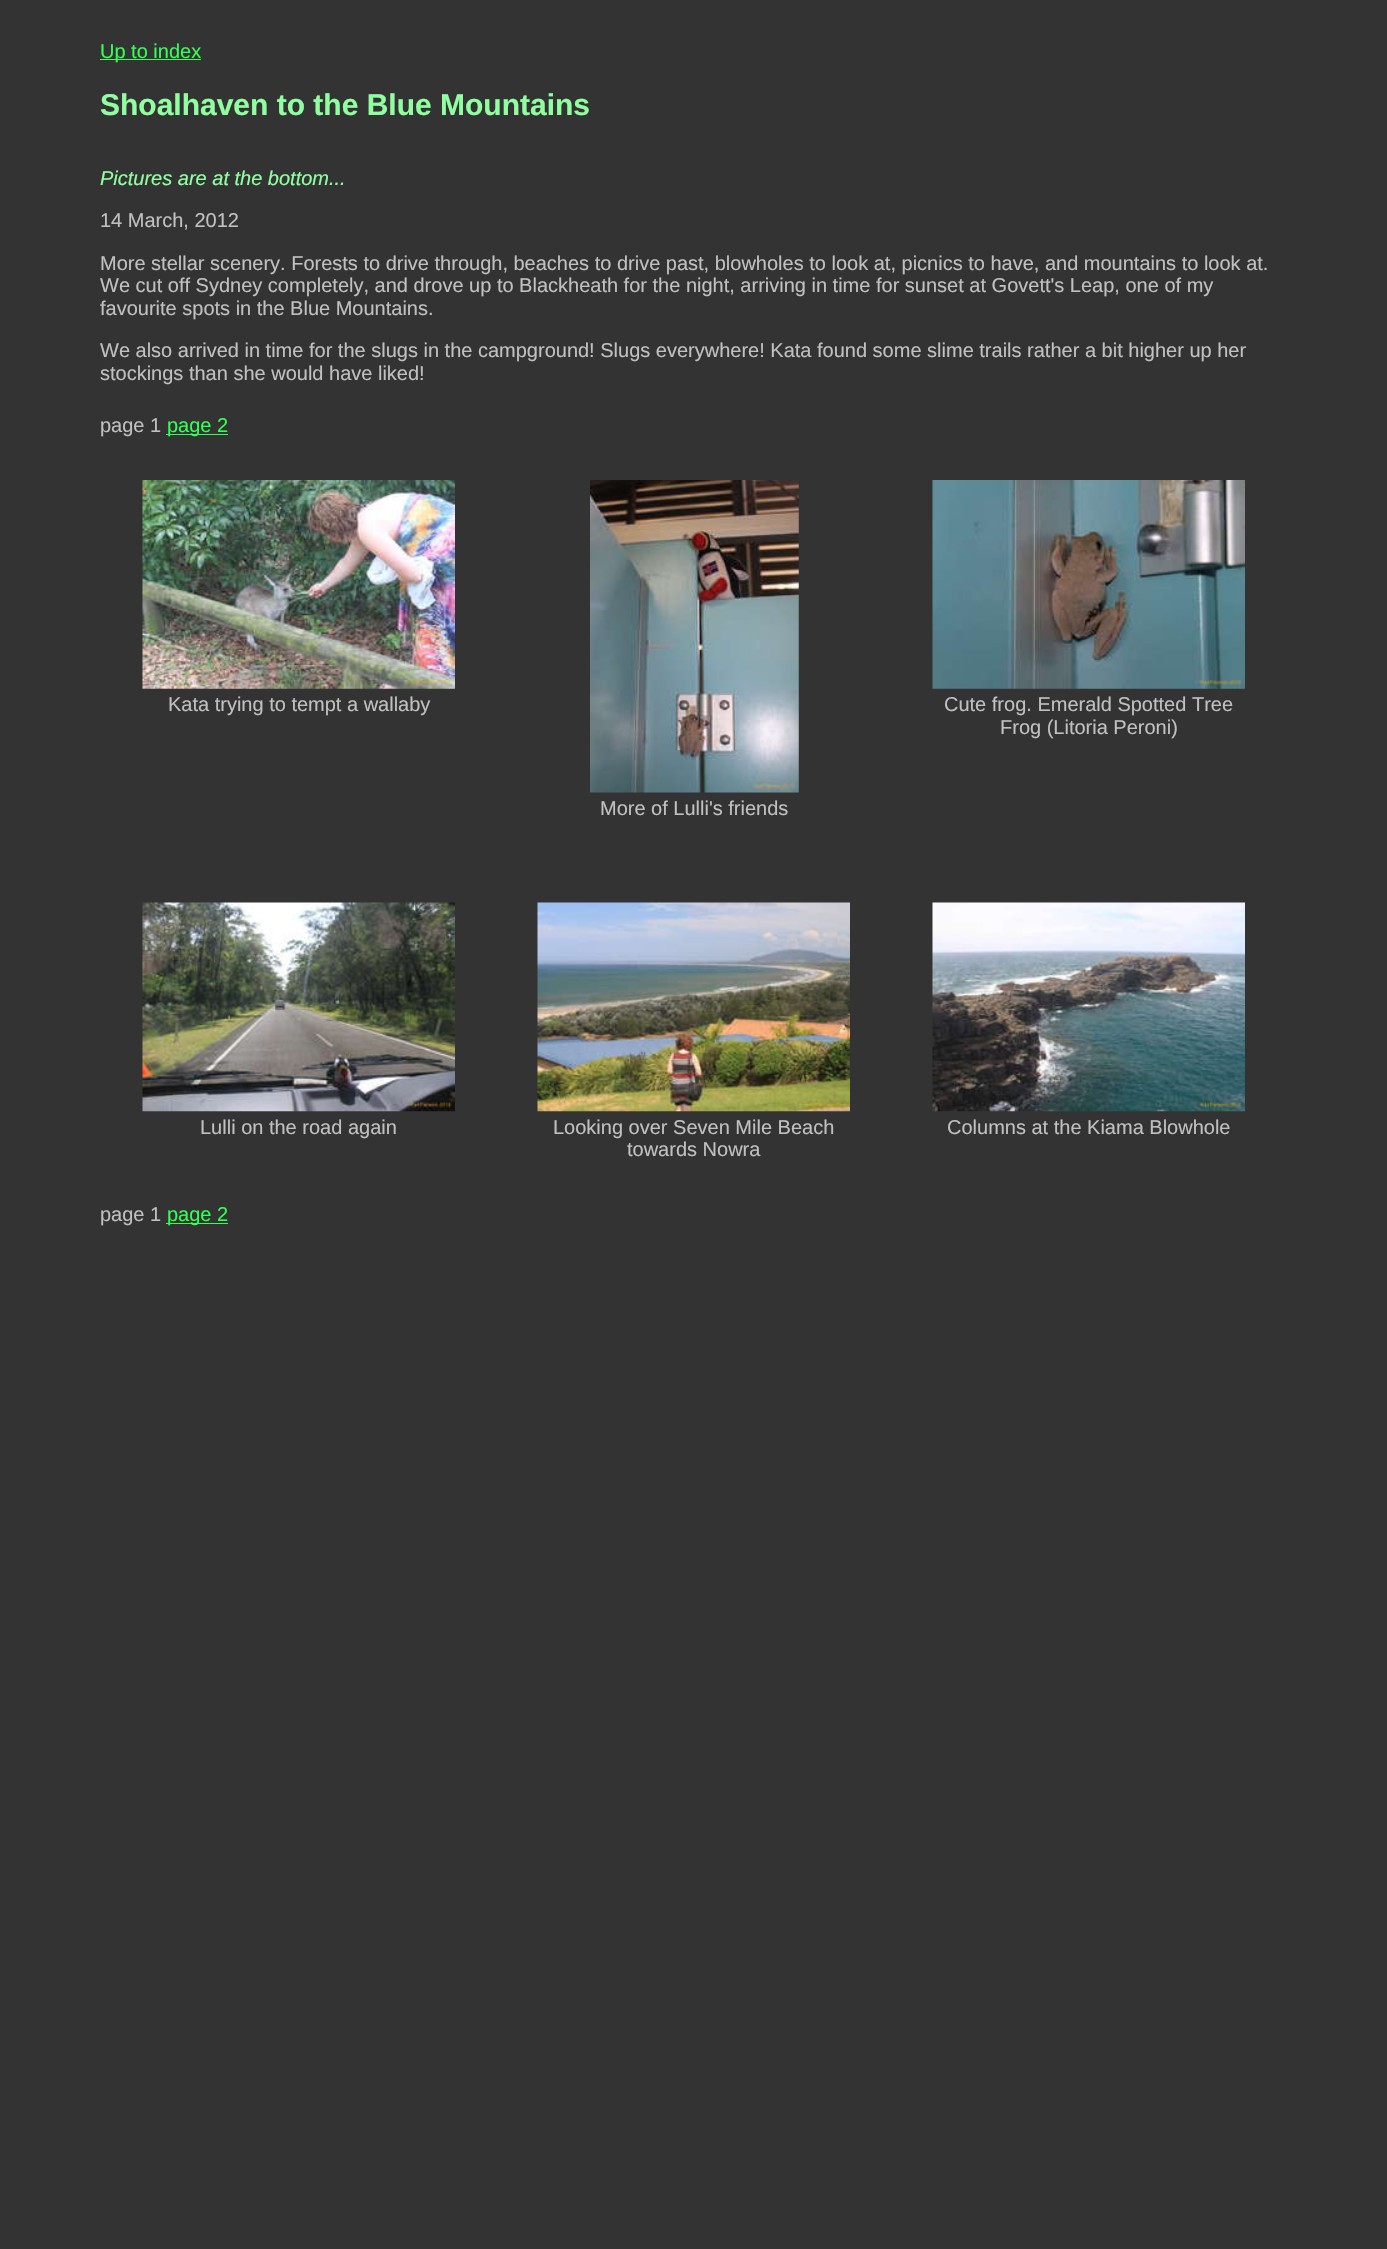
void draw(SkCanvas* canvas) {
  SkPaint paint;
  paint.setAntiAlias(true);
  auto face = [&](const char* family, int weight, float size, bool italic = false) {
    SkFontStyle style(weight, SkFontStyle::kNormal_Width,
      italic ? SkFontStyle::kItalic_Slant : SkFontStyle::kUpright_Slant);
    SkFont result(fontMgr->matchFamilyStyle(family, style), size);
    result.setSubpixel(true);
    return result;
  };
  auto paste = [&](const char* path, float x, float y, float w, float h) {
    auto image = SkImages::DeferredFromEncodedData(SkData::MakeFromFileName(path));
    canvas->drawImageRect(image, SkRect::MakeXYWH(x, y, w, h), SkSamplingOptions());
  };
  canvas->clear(0xff333333);
  paint.setColor(0xff33ff55);
  canvas->drawRect(SkRect::MakeXYWH(100, 59, 101, 1), paint);
  canvas->drawRect(SkRect::MakeXYWH(166, 434, 62, 1), paint);
  paste("img/1.png", 142, 480, 313, 209);
  paste("img/2.png", 932, 480, 313, 209);
  paste("img/3.png", 590, 480, 209, 313);
  paste("img/4.png", 142, 902, 313, 210);
  paste("img/5.png", 537, 902, 313, 210);
  paste("img/6.png", 932, 902, 313, 210);
  canvas->drawRect(SkRect::MakeXYWH(166, 1223, 62, 1), paint);
  auto f0 = face("Liberation Sans", 400, 20);
  canvas->drawString("Up to index", 100, 58, f0, paint);
  auto f1 = face("Liberation Sans", 700, 30);
  paint.setColor(0xff90ffa0);
  canvas->drawString("Shoalhaven to the Blue Mountains", 100, 115, f1, paint);
  auto f2 = face("Liberation Sans", 400, 20, true);
  canvas->drawString("Pictures are at the bottom...", 100, 185, f2, paint);
  paint.setColor(0xffc0c0c0);
  {
    const struct { const char* s; float x, y; } items[] = {
      {"14 March, 2012", 100, 227},
      {"More stellar scenery. Forests to drive through, beaches to drive past, blowholes to look at, picnics to have, and mountains to look at.", 100, 270},
      {"We cut off Sydney completely, and drove up to Blackheath for the night, arriving in time for sunset at Govett's Leap, one of my", 100, 292},
      {"favourite spots in the Blue Mountains.", 100, 315},
      {"We also arrived in time for the slugs in the campground! Slugs everywhere! Kata found some slime trails rather a bit higher up her", 100, 357},
      {"stockings than she would have liked!", 100, 380},
      {"page 1", 100, 432},
    };
    for (auto [s, x, y] : items) {
      canvas->drawString(s, x, y, f0, paint);
    }
  }
  paint.setColor(0xff33ff55);
  canvas->drawString("page 2", 167, 432, f0, paint);
  paint.setColor(0xffc0c0c0);
  {
    const struct { const char* s; float x, y; } items[] = {
      {"Kata trying to tempt a wallaby", 168, 711},
      {"Cute frog. Emerald Spotted Tree", 944, 711},
      {"Frog (Litoria Peroni)", 1000, 734},
      {"More of Lulli's friends", 600, 815},
      {"Lulli on the road again", 200, 1134},
      {"Looking over Seven Mile Beach", 553, 1134},
      {"towards Nowra", 627, 1156},
      {"Columns at the Kiama Blowhole", 947, 1134},
      {"page 1", 100, 1221},
    };
    for (auto [s, x, y] : items) {
      canvas->drawString(s, x, y, f0, paint);
    }
  }
  paint.setColor(0xff33ff55);
  canvas->drawString("page 2", 167, 1221, f0, paint);
}
